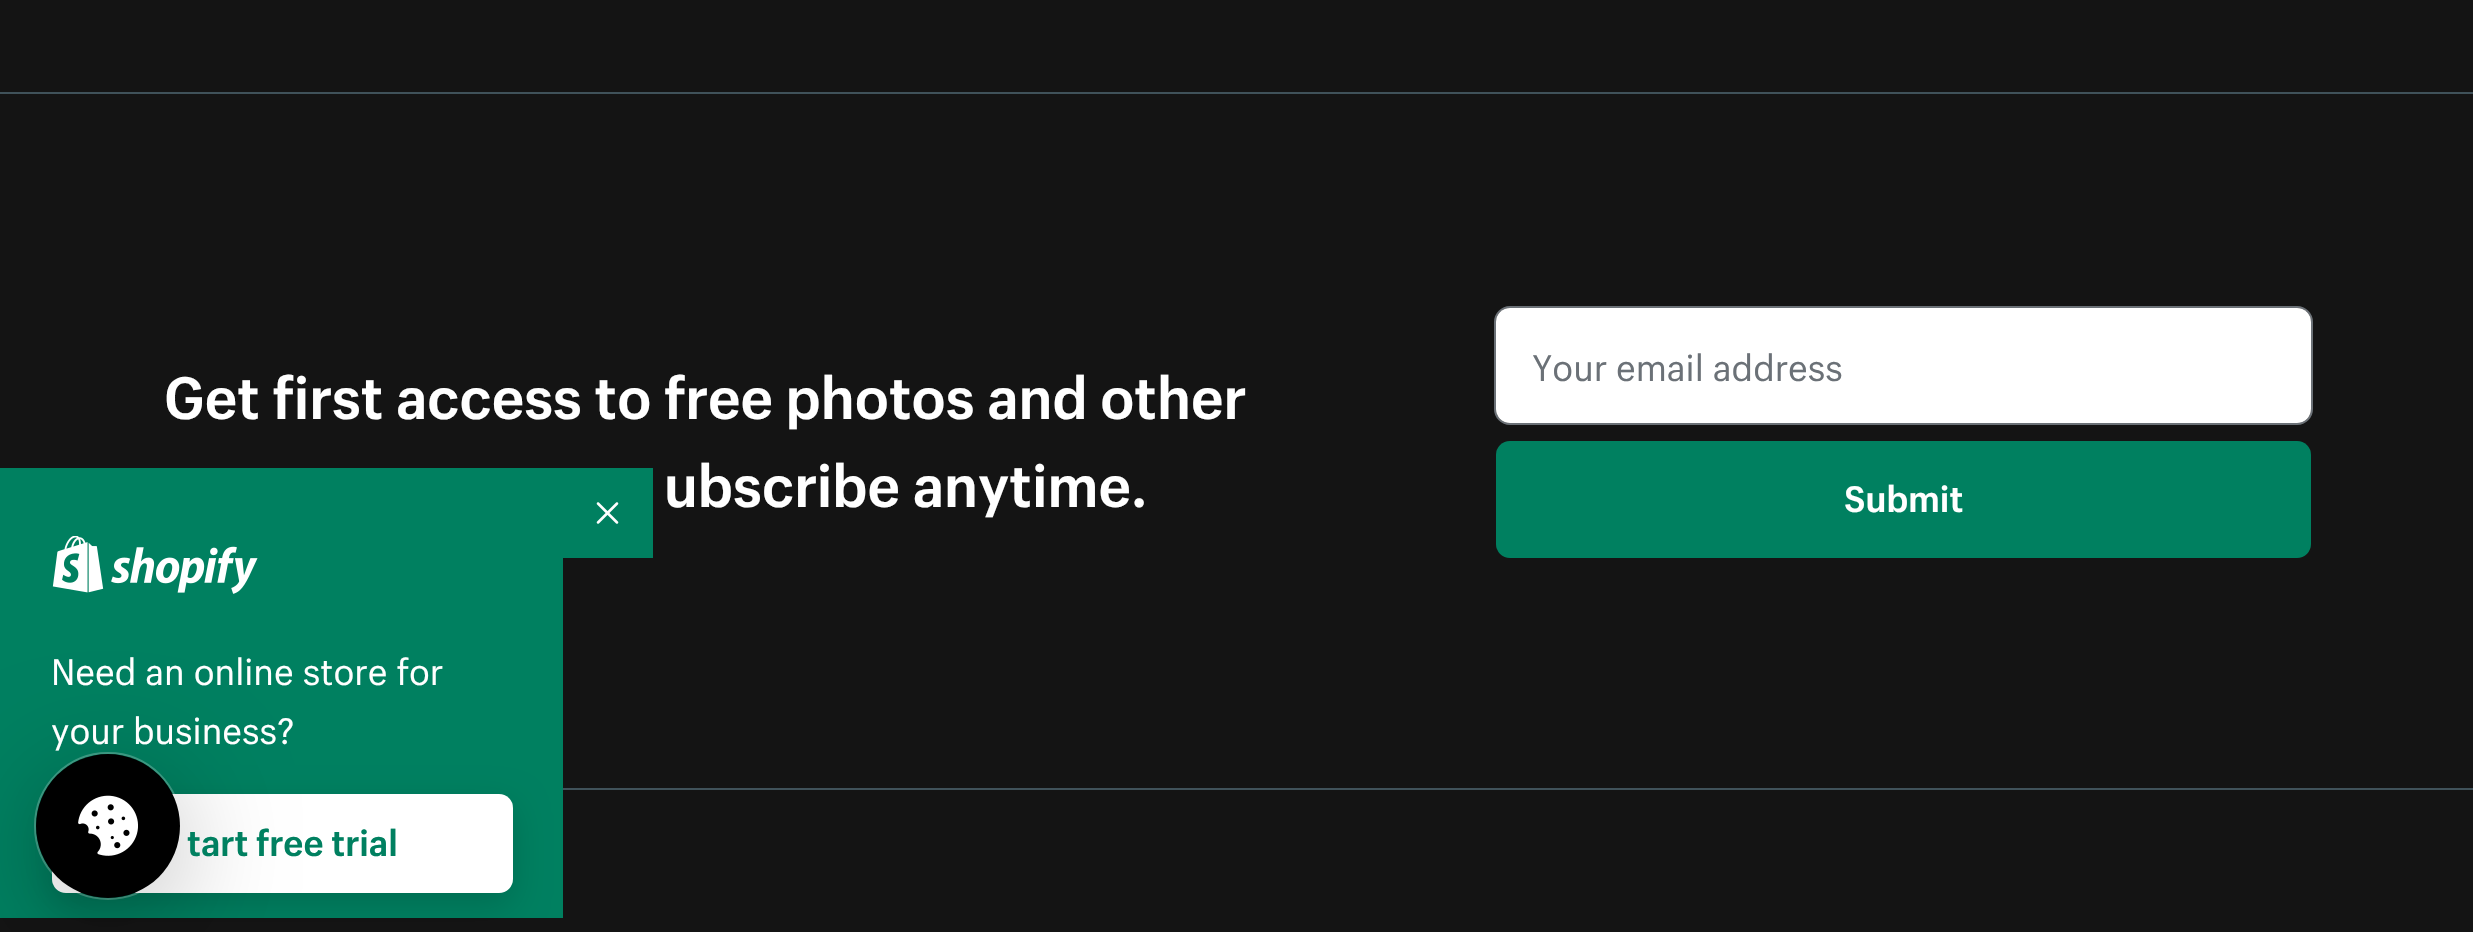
void draw(SkCanvas* canvas) {
  SkPaint paint;
  paint.setAntiAlias(true);
  auto face = [&](const char* family, int weight, float size, bool italic = false) {
    SkFontStyle style(weight, SkFontStyle::kNormal_Width,
      italic ? SkFontStyle::kItalic_Slant : SkFontStyle::kUpright_Slant);
    SkFont result(fontMgr->matchFamilyStyle(family, style), size);
    result.setSubpixel(true);
    return result;
  };
  auto paste = [&](const char* path, float x, float y, float w, float h) {
    auto image = SkImages::DeferredFromEncodedData(SkData::MakeFromFileName(path));
    canvas->drawImageRect(image, SkRect::MakeXYWH(x, y, w, h), SkSamplingOptions());
  };
  canvas->clear(0xff141414);
  paint.setColor(0xff40525a);
  canvas->drawRect(SkRect::MakeXYWH(0, 92, 2473, 2), paint);
  paint.setStroke(true);
  paint.setStrokeWidth(2);
  paint.setColor(0xff6b7177);
  canvas->drawRoundRect(SkRect::MakeXYWH(1495, 307, 817, 117), 15, 15, paint);
  paint.setStroke(false);
  paint.setColor(0xffffffff);
  canvas->drawRoundRect(SkRect::MakeXYWH(1496, 308, 815, 115), 14, 14, paint);
  paint.setColor(0xff008060);
  canvas->drawRoundRect(SkRect::MakeXYWH(1496, 441, 815, 117), 14, 14, paint);
  paint.setColor(0xff40525a);
  canvas->drawRect(SkRect::MakeXYWH(563, 788, 1910, 2), paint);
  paint.setColor(0xff008060);
  canvas->drawRect(SkRect::MakeXYWH(563, 468, 90, 90), paint);
  paste("img/1.png", 596, 502, 23, 22);
  canvas->drawRect(SkRect::MakeXYWH(0, 468, 563, 450), paint);
  paste("img/2.png", 52, 536, 206, 58);
  paint.setColor(0x26000000);
  paint.setMaskFilter(SkMaskFilter::MakeBlur(kNormal_SkBlurStyle, 17));
  canvas->drawRoundRect(SkRect::MakeXYWH(52, 806, 461, 99), 14, 14, paint);
  paint.setMaskFilter(nullptr);
  paint.setColor(0xffffffff);
  canvas->drawRoundRect(SkRect::MakeXYWH(52, 794, 461, 99), 14, 14, paint);
  paint.setStroke(true);
  paint.setColor(0x40ffffff);
  canvas->drawCircle(108, 826, 73, paint);
  paint.setStroke(false);
  paint.setColor(0x40000000);
  paint.setMaskFilter(SkMaskFilter::MakeBlur(kNormal_SkBlurStyle, 56));
  canvas->drawRoundRect(SkRect::MakeXYWH(36, 776, 144, 144), 72, 72, paint);
  paint.setMaskFilter(nullptr);
  paint.setColor(0xff000000);
  canvas->drawCircle(108, 826, 72, paint);
  paste("img/3.png", 78, 795, 60, 61);
  auto f0 = face("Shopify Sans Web", 700, 58.25f);
  paint.setColor(0xffffffff);
  canvas->drawString("Get first access to free photos and other", 164, 419, f0, paint);
  canvas->drawString("ubscribe anytime.", 664, 507, f0, paint);
  auto f1 = face("Shopify Sans Web", 400, 36);
  paint.setColor(0xff6b7177);
  canvas->drawString("Your email address", 1532, 381, f1, paint);
  auto f2 = face("Shopify Sans Web", 700, 36);
  paint.setColor(0xffffffff);
  canvas->drawString("Submit", 1844, 512, f2, paint);
  canvas->drawString("Need an online store for", 51, 685, f1, paint);
  canvas->drawString("your business?", 51, 744, f1, paint);
  paint.setColor(0xff008060);
  canvas->drawString("tart free trial", 187, 856, f2, paint);
}
